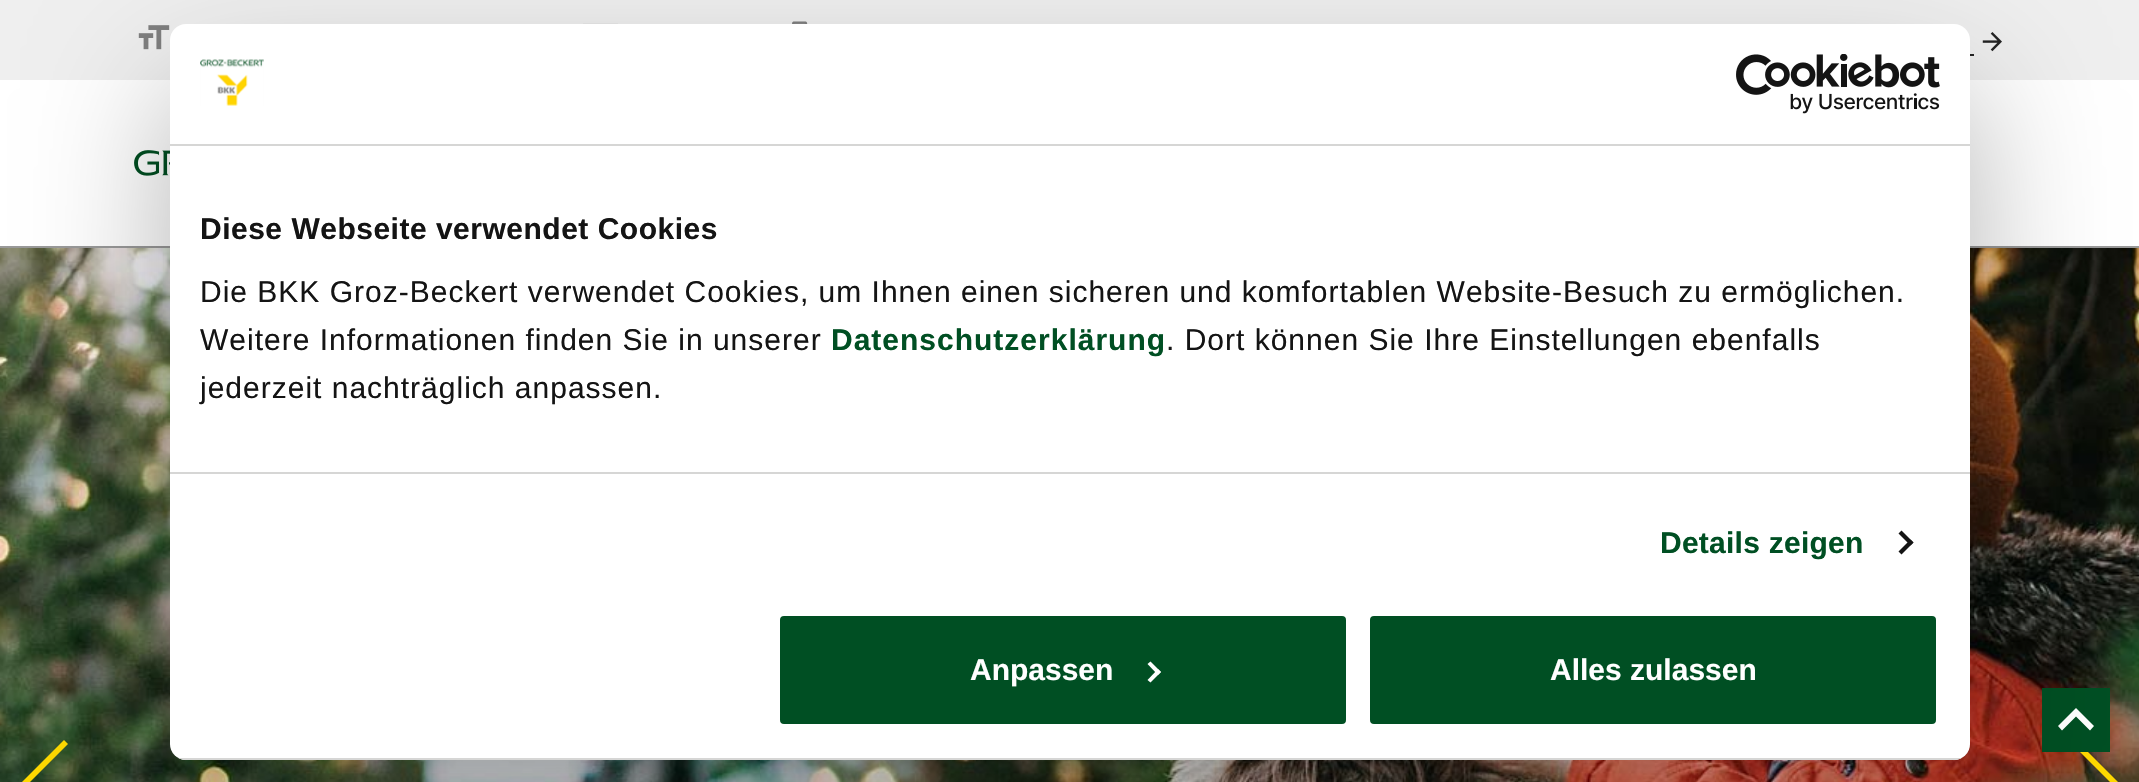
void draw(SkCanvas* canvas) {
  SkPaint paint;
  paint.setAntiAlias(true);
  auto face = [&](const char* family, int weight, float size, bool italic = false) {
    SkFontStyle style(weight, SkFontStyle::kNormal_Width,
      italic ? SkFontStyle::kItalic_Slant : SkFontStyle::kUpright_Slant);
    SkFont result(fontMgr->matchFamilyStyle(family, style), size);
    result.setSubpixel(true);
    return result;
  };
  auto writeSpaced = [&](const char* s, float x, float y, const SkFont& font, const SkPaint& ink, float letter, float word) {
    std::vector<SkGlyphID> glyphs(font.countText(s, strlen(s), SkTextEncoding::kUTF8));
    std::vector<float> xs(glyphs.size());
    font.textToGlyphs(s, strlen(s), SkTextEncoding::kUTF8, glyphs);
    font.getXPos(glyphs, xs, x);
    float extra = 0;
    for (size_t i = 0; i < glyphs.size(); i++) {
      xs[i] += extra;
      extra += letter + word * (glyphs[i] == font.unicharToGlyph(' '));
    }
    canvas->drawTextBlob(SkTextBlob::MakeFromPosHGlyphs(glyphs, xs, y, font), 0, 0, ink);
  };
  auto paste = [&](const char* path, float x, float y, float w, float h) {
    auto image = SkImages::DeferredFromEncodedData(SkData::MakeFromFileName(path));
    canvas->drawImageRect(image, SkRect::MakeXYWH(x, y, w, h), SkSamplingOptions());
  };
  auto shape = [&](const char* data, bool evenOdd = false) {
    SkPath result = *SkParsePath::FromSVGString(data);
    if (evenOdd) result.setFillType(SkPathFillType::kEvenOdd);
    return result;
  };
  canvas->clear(0xffffffff);
  paint.setColor(0xff999999);
  canvas->drawRect(SkRect::MakeXYWH(0, 246, 2139, 2), paint);
  paint.setColor(0xffefefef);
  canvas->drawRect(SkRect::MakeXYWH(0, 0, 2139, 80), paint);
  paste("img/1.png", 583, 23, 35, 1);
  paste("img/2.png", 792, 21, 16, 3);
  paste("img/3.png", 138, 25, 32, 25);
  paste("img/4.png", 1982, 32, 20, 20);
  paint.setColor(0xff232323);
  canvas->drawRect(SkRect::MakeXYWH(1970, 54, 4, 2), paint);
  paste("img/5.png", 134, 150, 36, 26);
  paste("img/6.png", 0, 248, 2139, 534);
  paint.setColor(0xffffd900);
  canvas->drawPath(shape("M20 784L64 740L68 744L28 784L68 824L64 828Z"), paint);
  canvas->drawPath(shape("M2120 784L2076 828L2072 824L2112 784L2072 744L2076 740Z"), paint);
  paint.setColor(0xff004f23);
  canvas->drawRect(SkRect::MakeXYWH(2042, 688, 68, 64), paint);
  paint.setColor(0xffffffff);
  canvas->drawPath(shape("M2062 730.5L2058 726L2076 708L2094 726L2090 730.5L2076 716.5Z"), paint);
  paint.setColor(0x4d000000);
  paint.setMaskFilter(SkMaskFilter::MakeBlur(kNormal_SkBlurStyle, 68));
  canvas->drawRoundRect(SkRect::MakeXYWH(170, 88, 1800, 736), 16, 16, paint);
  paint.setMaskFilter(nullptr);
  paint.setColor(0xffffffff);
  canvas->drawRoundRect(SkRect::MakeXYWH(170, 24, 1800, 736), 16, 16, paint);
  paint.setColor(0xffd6d6d5);
  canvas->drawRect(SkRect::MakeXYWH(170, 144, 1800, 2), paint);
  paste("img/7.png", 200, 59, 64, 47);
  paste("img/8.png", 1736, 54, 204, 60);
  canvas->drawRect(SkRect::MakeXYWH(170, 472, 1800, 2), paint);
  paint.setColor(0xff141414);
  canvas->drawPath(shape("M1901.5 530.5L1913.5 542.5L1910.5 545.5L1898.5 533.5Z"), paint);
  canvas->drawPath(shape("M1910.5 539.5L1913.5 542.5L1901.5 554.5L1898.5 551.5Z"), paint);
  canvas->save();
  canvas->clipPath(shape("M186 24H1954C1963 24 1970 31 1970 40V744C1970 753 1963 760 1954 760H186C177 760 170 753 170 744V40C170 31 177 24 186 24Z"), true);
  paint.setColor(0xffd6d6d5);
  canvas->drawRect(SkRect::MakeXYWH(170, 758, 1800, 2), paint);
  canvas->restore();
  paint.setColor(0xff004f23);
  canvas->drawRoundRect(SkRect::MakeXYWH(778, 614, 570, 112), 6, 6, paint);
  paint.setStroke(true);
  paint.setStrokeWidth(4);
  paint.setColor(0xffffffff);
  canvas->drawRoundRect(SkRect::MakeXYWH(778, 614, 570, 112), 6, 6, paint);
  paint.setStroke(false);
  canvas->drawPath(shape("M1150.5 661.5L1161 672L1158 675L1147.5 664Z"), paint);
  canvas->drawPath(shape("M1158 669L1161 672L1150.5 682.5L1147.5 680Z"), paint);
  paint.setColor(0xff004f23);
  canvas->drawRoundRect(SkRect::MakeXYWH(1368, 614, 570, 112), 6, 6, paint);
  paint.setStroke(true);
  paint.setColor(0xffffffff);
  canvas->drawRoundRect(SkRect::MakeXYWH(1368, 614, 570, 112), 6, 6, paint);
  auto f0 = face("Liberation Sans", 700, 30);
  paint.setStroke(false);
  paint.setColor(0xff141414);
  writeSpaced("Diese Webseite verwendet Cookies", 200, 239, f0, paint, 0.5f, 0);
  auto f1 = face("Liberation Sans", 400, 30);
  writeSpaced("Die BKK Groz-Beckert verwendet Cookies, um Ihnen einen sicheren und komfortablen Website-Besuch zu ermöglichen.", 200, 302, f1, paint, 1, 0);
  writeSpaced("Weitere Informationen finden Sie in unserer", 200, 350, f1, paint, 1, 0);
  paint.setColor(0xff004f23);
  writeSpaced("Datenschutzerklärung", 831, 350, f0, paint, 1, 0);
  paint.setColor(0xff141414);
  writeSpaced(". Dort können Sie Ihre Einstellungen ebenfalls", 1166, 350, f1, paint, 1, 0);
  writeSpaced("jederzeit nachträglich anpassen.", 200, 398, f1, paint, 1, 0);
  paint.setColor(0xff004f23);
  writeSpaced("Details zeigen", 1660, 553, f0, paint, 0.25f, 0);
  paint.setColor(0xffffffff);
  canvas->drawString("Anpassen", 970, 680, f0, paint);
  canvas->drawString("Alles zulassen", 1550, 680, f0, paint);
}
